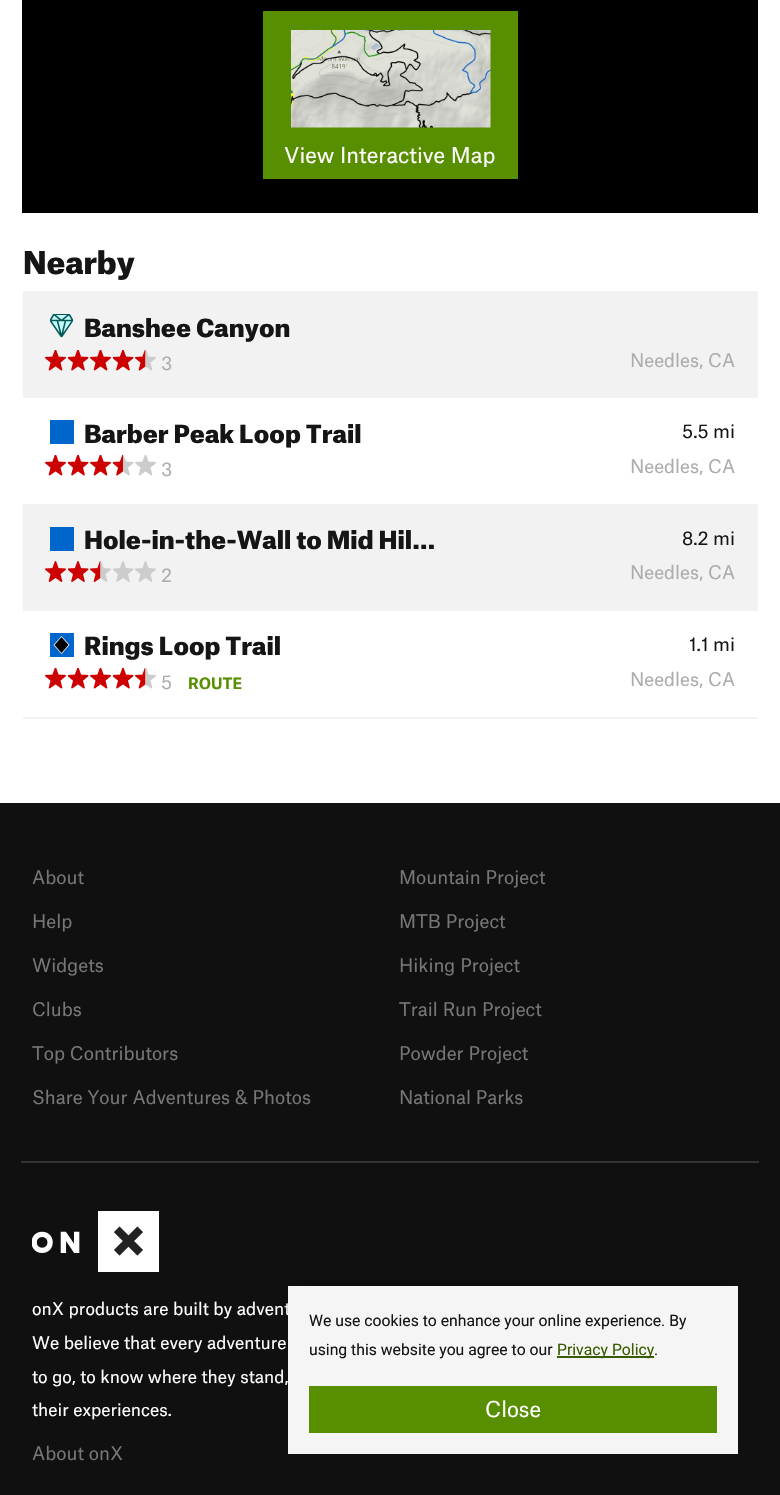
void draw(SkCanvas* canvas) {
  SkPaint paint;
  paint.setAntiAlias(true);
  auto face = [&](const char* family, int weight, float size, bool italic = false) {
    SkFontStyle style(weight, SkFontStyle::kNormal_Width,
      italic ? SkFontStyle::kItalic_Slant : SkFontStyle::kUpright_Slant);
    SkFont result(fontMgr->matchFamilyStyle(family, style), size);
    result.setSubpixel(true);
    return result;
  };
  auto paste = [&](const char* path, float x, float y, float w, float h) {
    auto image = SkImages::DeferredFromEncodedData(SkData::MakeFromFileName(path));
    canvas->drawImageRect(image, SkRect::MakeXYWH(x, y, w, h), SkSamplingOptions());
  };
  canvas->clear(0xffffffff);
  paint.setColor(0xff000000);
  canvas->drawRect(SkRect::MakeXYWH(22, 0, 736, 213), paint);
  paint.setColor(0xff588f00);
  canvas->drawRect(SkRect::MakeXYWH(263, 11, 255, 168), paint);
  paste("img/1.png", 291, 30, 200, 98);
  paint.setColor(0xfff2f2f2);
  canvas->drawRect(SkRect::MakeXYWH(23, 717, 735, 2), paint);
  canvas->drawRect(SkRect::MakeXYWH(23, 291, 735, 107), paint);
  paste("img/2.png", 50, 314, 24, 24);
  paste("img/3.png", 45, 350, 21, 21);
  paste("img/4.png", 68, 350, 21, 21);
  paste("img/3.png", 90, 350, 21, 21);
  paste("img/4.png", 113, 350, 21, 21);
  paste("img/5.png", 135, 350, 21, 21);
  paint.setColor(0xff0066cc);
  canvas->drawRect(SkRect::MakeXYWH(50, 420, 24, 24), paint);
  paste("img/6.png", 45, 455, 21, 21);
  paste("img/7.png", 68, 455, 21, 21);
  paste("img/6.png", 90, 455, 21, 21);
  paste("img/8.png", 113, 455, 21, 21);
  paste("img/9.png", 135, 455, 21, 21);
  paint.setColor(0xfff2f2f2);
  canvas->drawRect(SkRect::MakeXYWH(23, 504, 735, 107), paint);
  paint.setColor(0xff0066cc);
  canvas->drawRect(SkRect::MakeXYWH(50, 527, 24, 24), paint);
  paste("img/10.png", 45, 561, 21, 21);
  paste("img/11.png", 68, 561, 21, 21);
  paste("img/12.png", 90, 561, 21, 21);
  paste("img/13.png", 113, 561, 21, 21);
  paste("img/14.png", 135, 561, 21, 21);
  paste("img/15.png", 50, 633, 24, 24);
  paste("img/6.png", 45, 668, 21, 21);
  paste("img/7.png", 68, 668, 21, 21);
  paste("img/6.png", 90, 668, 21, 21);
  paste("img/7.png", 113, 668, 21, 21);
  paste("img/16.png", 135, 668, 21, 21);
  paint.setColor(0xff101010);
  canvas->drawRect(SkRect::MakeXYWH(0, 803, 780, 692), paint);
  paint.setColor(0xff333333);
  canvas->drawRect(SkRect::MakeXYWH(21, 1161, 738, 2), paint);
  paste("img/17.png", 32, 1211, 127, 61);
  paint.setColor(0x40000000);
  paint.setMaskFilter(SkMaskFilter::MakeBlur(kNormal_SkBlurStyle, 7.5f));
  canvas->drawRect(SkRect::MakeXYWH(296, 1286, 435, 153), paint);
  paint.setMaskFilter(nullptr);
  auto f0 = face("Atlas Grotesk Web", 400, 21);
  paint.setColor(0xffffffff);
  canvas->drawString("View Interactive Map", 284, 163, f0, paint);
  auto f1 = face("Atlas Grotesk Web", 900, 30);
  paint.setColor(0xff151515);
  canvas->drawString("Nearby", 23, 274, f1, paint);
  auto f2 = face("Atlas Grotesk Web", 900, 24);
  canvas->drawString("Banshee Canyon", 84, 337, f2, paint);
  auto f3 = face("Atlas Grotesk Web", 400, 18);
  paint.setColor(0xffacacac);
  canvas->drawString("3", 161, 370, f3, paint);
  canvas->drawString("Needles, CA", 630, 367, f3, paint);
  paint.setColor(0xff151515);
  canvas->drawString("Barber Peak Loop Trail", 84, 443, f2, paint);
  canvas->drawString("5.5", 682, 438, f3, paint);
  canvas->drawString("mi", 713, 438, f3, paint);
  paint.setColor(0xffacacac);
  canvas->drawString("3", 161, 476, f3, paint);
  canvas->drawString("Needles, CA", 630, 473, f3, paint);
  paint.setColor(0xff151515);
  canvas->drawString("Hole-in-the-Wall to Mid Hil…", 84, 549, f2, paint);
  canvas->drawString("8.2", 682, 545, f3, paint);
  canvas->drawString("mi", 713, 545, f3, paint);
  paint.setColor(0xffacacac);
  canvas->drawString("2", 161, 582, f3, paint);
  canvas->drawString("Needles, CA", 630, 579, f3, paint);
  paint.setColor(0xff151515);
  canvas->drawString("Rings Loop Trail", 84, 655, f2, paint);
  canvas->drawString("1.1", 689, 651, f3, paint);
  canvas->drawString("mi", 713, 651, f3, paint);
  paint.setColor(0xffacacac);
  canvas->drawString("5", 161, 689, f3, paint);
  auto f4 = face("Atlas Grotesk Web", 700, 15);
  paint.setColor(0xff588f00);
  canvas->drawString("ROUTE", 188, 689, f4, paint);
  paint.setColor(0xffacacac);
  canvas->drawString("Needles, CA", 630, 686, f3, paint);
  paint.setColor(0xff777777);
  {
    const struct { const char* s; float x, y; } items[] = {
      {"About", 32, 884},
      {"Mountain Project", 399, 884},
      {"Help", 32, 928},
      {"MTB Project", 399, 928},
      {"Widgets", 32, 972},
      {"Hiking Project", 399, 972},
      {"Clubs", 32, 1016},
      {"Trail Run Project", 399, 1016},
      {"Top Contributors", 32, 1060},
      {"Powder Project", 399, 1060},
      {"Share Your Adventures & Photos", 32, 1104},
      {"National Parks", 399, 1104},
    };
    for (auto [s, x, y] : items) {
      canvas->drawString(s, x, y, f3, paint);
    }
  }
  auto f5 = face("Atlas Grotesk Web", 400, 16.75f);
  paint.setColor(0xffffffff);
  {
    const struct { const char* s; float x, y; } items[] = {
      {"onX products are built by advent", 32, 1315},
      {"We believe that every adventure", 32, 1349},
      {"to go, to know where they stand,", 32, 1383},
      {"their experiences.", 32, 1416},
    };
    for (auto [s, x, y] : items) {
      canvas->drawString(s, x, y, f5, paint);
    }
  }
  paint.setColor(0xff777777);
  canvas->drawString("About onX", 32, 1460, f3, paint);
  paint.setColor(0xfff5f5f5);
  canvas->drawRect(SkRect::MakeXYWH(288, 1286, 450, 168), paint);
  auto f6 = face("Roboto", 400, 15.75f);
  paint.setColor(0xff151515);
  canvas->drawString("We use cookies to enhance your online experience. By", 309, 1326, f6, paint);
  canvas->drawString("using this website you agree to our", 309, 1355, f6, paint);
  paint.setColor(0xff395c00);
  canvas->drawRect(SkRect::MakeXYWH(557, 1356, 97, 2), paint);
  canvas->drawString("Privacy Policy", 557, 1355, f6, paint);
  paint.setColor(0xff151515);
  canvas->drawString(".", 654, 1355, f6, paint);
  paint.setColor(0xff588f00);
  canvas->drawRect(SkRect::MakeXYWH(309, 1386, 408, 47), paint);
  paint.setColor(0xffffffff);
  canvas->drawString("Close", 485, 1417, f0, paint);
}
